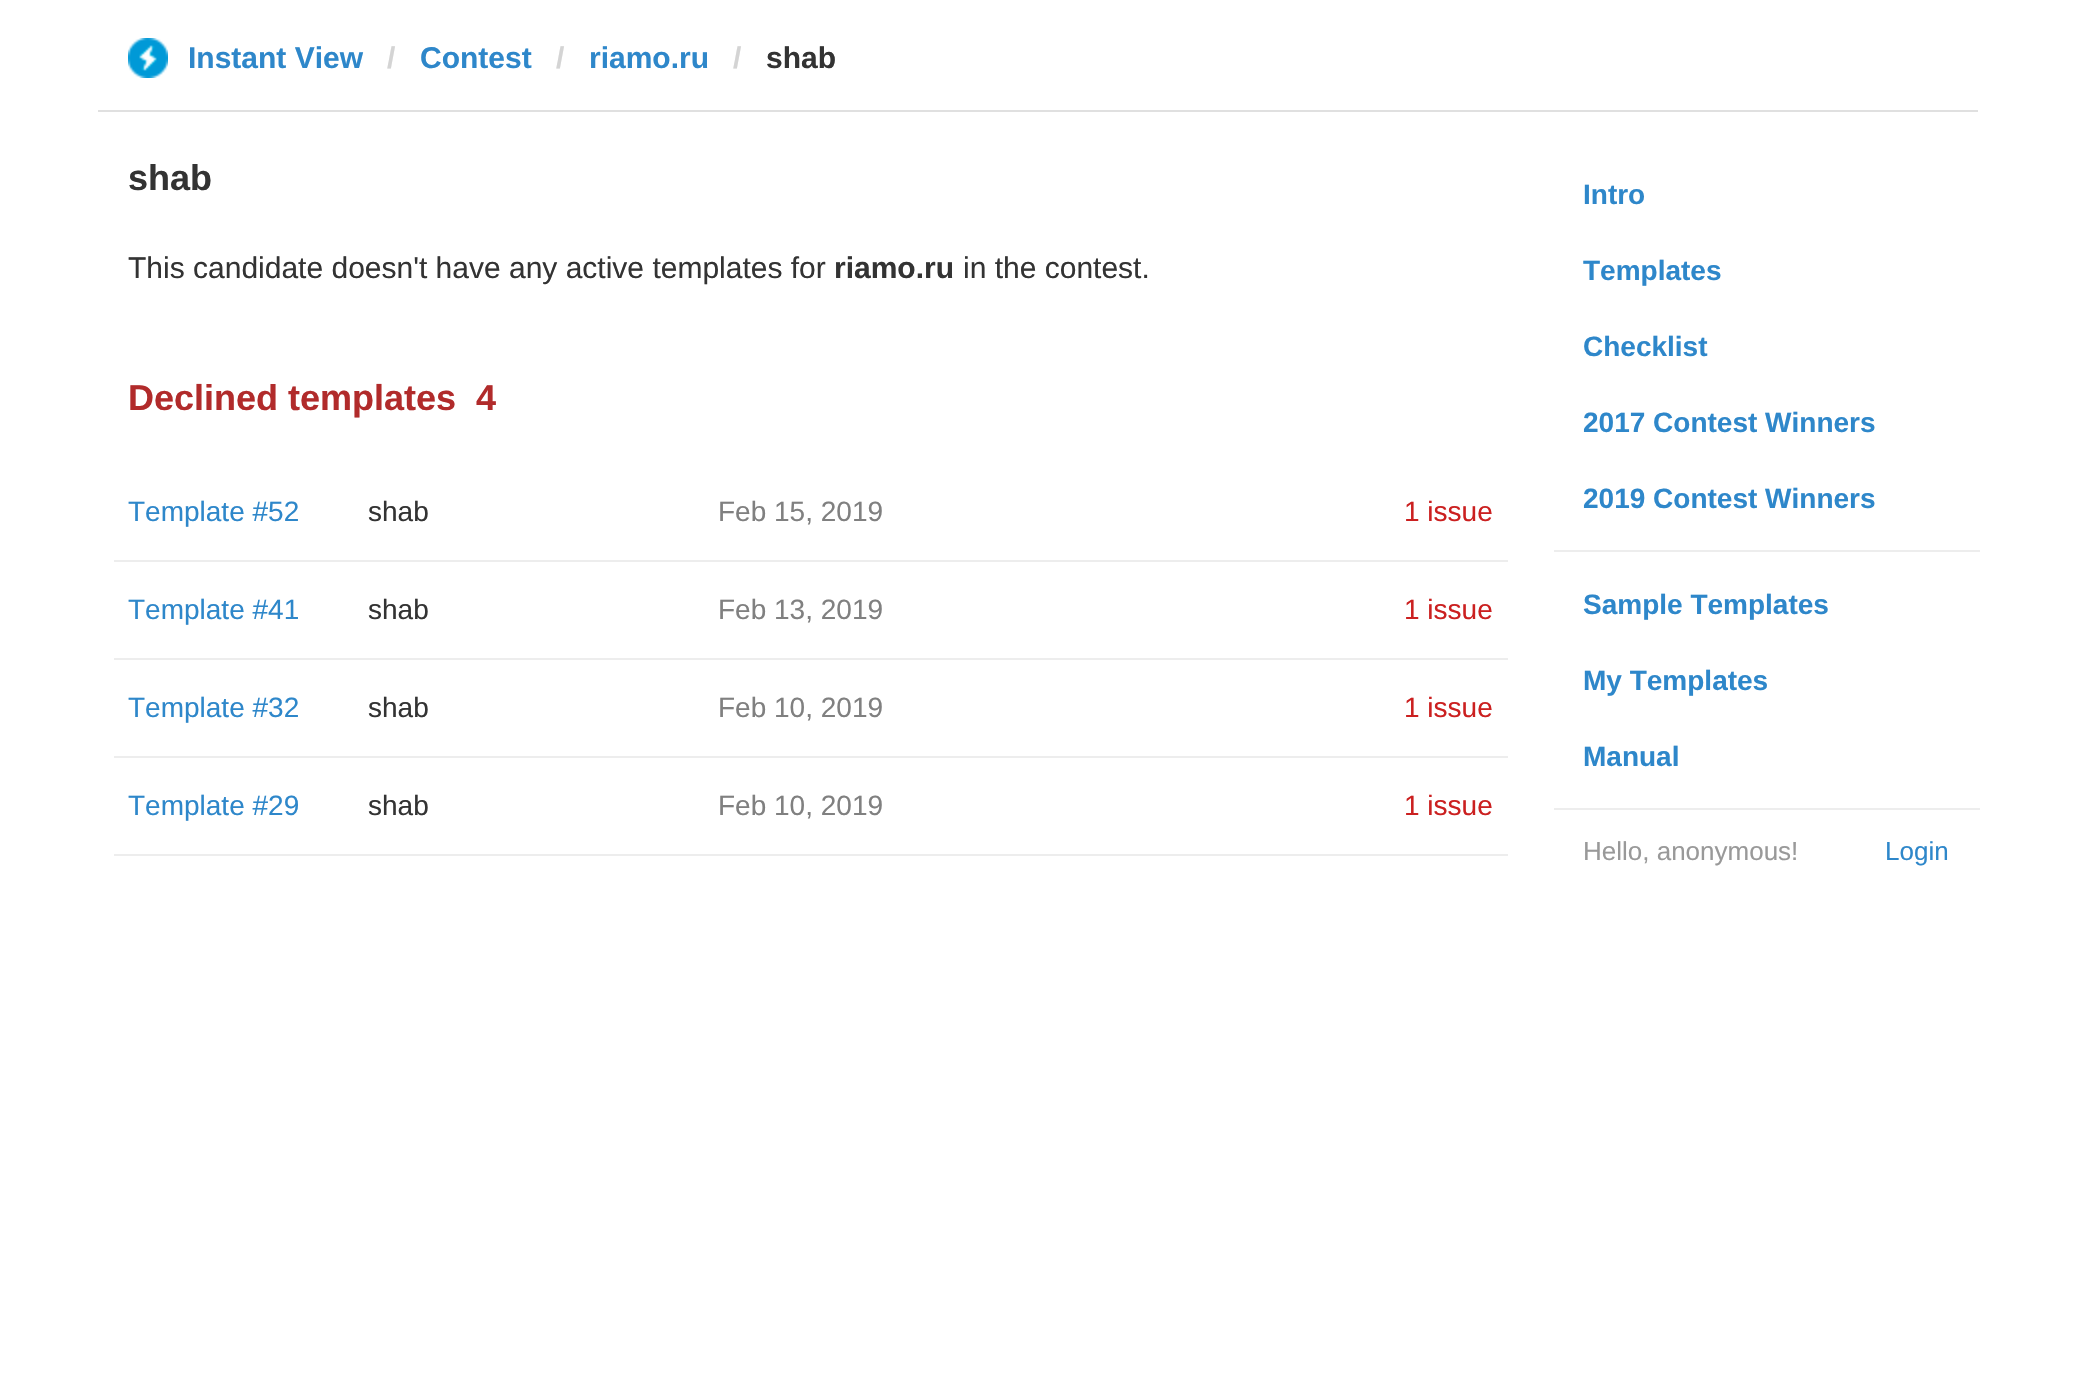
void draw(SkCanvas* canvas) {
  SkPaint paint;
  paint.setAntiAlias(true);
  auto face = [&](const char* family, int weight, float size, bool italic = false) {
    SkFontStyle style(weight, SkFontStyle::kNormal_Width,
      italic ? SkFontStyle::kItalic_Slant : SkFontStyle::kUpright_Slant);
    SkFont result(fontMgr->matchFamilyStyle(family, style), size);
    result.setSubpixel(true);
    return result;
  };
  auto paste = [&](const char* path, float x, float y, float w, float h) {
    auto image = SkImages::DeferredFromEncodedData(SkData::MakeFromFileName(path));
    canvas->drawImageRect(image, SkRect::MakeXYWH(x, y, w, h), SkSamplingOptions());
  };
  canvas->clear(0xffffffff);
  paint.setColor(0xffe0e0e0);
  canvas->drawRect(SkRect::MakeXYWH(98, 110, 1880, 2), paint);
  paste("img/1.png", 128, 38, 40, 40);
  {
    const struct { float x, y, w, h; SkColor color; } items[] = {
      {114, 560, 1394, 2, 0xffededed},
      {114, 658, 1394, 2, 0xffededed},
      {114, 756, 1394, 2, 0xffededed},
      {114, 854, 1394, 2, 0xffededed},
      {1554, 550, 426, 2, 0xffededed},
      {1554, 808, 426, 2, 0xffededed},
    };
    for (auto [x, y, w, h, color] : items) {
      paint.setColor(color);
      canvas->drawRect(SkRect::MakeXYWH(x, y, w, h), paint);
    }
  }
  auto f0 = face("Liberation Sans", 700, 30);
  paint.setColor(0xff2e87ca);
  canvas->drawString("Instant View", 188, 68, f0, paint);
  paint.setColor(0xffd4d4d4);
  canvas->drawString("/", 387, 68, f0, paint);
  paint.setColor(0xff2e87ca);
  canvas->drawString("Contest", 420, 68, f0, paint);
  paint.setColor(0xffd4d4d4);
  canvas->drawString("/", 556, 68, f0, paint);
  paint.setColor(0xff2e87ca);
  canvas->drawString("riamo.ru", 589, 68, f0, paint);
  paint.setColor(0xffd4d4d4);
  canvas->drawString("/", 733, 68, f0, paint);
  paint.setColor(0xff333333);
  canvas->drawString("shab", 766, 68, f0, paint);
  auto f1 = face("Liberation Sans", 700, 36);
  canvas->drawString("shab", 128, 190, f1, paint);
  auto f2 = face("Liberation Sans", 400, 30);
  canvas->drawString("This candidate doesn't have any active templates for", 128, 278, f2, paint);
  canvas->drawString("riamo.ru", 834, 278, f0, paint);
  canvas->drawString("in the contest.", 963, 278, f2, paint);
  paint.setColor(0xffb12b2b);
  canvas->drawString("Declined templates", 128, 410, f1, paint);
  canvas->drawString("4", 476, 410, f1, paint);
  auto f3 = face("Liberation Sans", 400, 28);
  paint.setColor(0xff2e87ca);
  canvas->drawString("Template #52", 128, 521, f3, paint);
  paint.setColor(0xff333333);
  canvas->drawString("shab", 368, 521, f3, paint);
  paint.setColor(0xff808080);
  canvas->drawString("Feb 15, 2019", 718, 521, f3, paint);
  paint.setColor(0xffcb2020);
  canvas->drawString("1 issue", 1404, 521, f3, paint);
  paint.setColor(0xff2e87ca);
  canvas->drawString("Template #41", 128, 619, f3, paint);
  paint.setColor(0xff333333);
  canvas->drawString("shab", 368, 619, f3, paint);
  paint.setColor(0xff808080);
  canvas->drawString("Feb 13, 2019", 718, 619, f3, paint);
  paint.setColor(0xffcb2020);
  canvas->drawString("1 issue", 1404, 619, f3, paint);
  paint.setColor(0xff2e87ca);
  canvas->drawString("Template #32", 128, 717, f3, paint);
  paint.setColor(0xff333333);
  canvas->drawString("shab", 368, 717, f3, paint);
  paint.setColor(0xff808080);
  canvas->drawString("Feb 10, 2019", 718, 717, f3, paint);
  paint.setColor(0xffcb2020);
  canvas->drawString("1 issue", 1404, 717, f3, paint);
  paint.setColor(0xff2e87ca);
  canvas->drawString("Template #29", 128, 815, f3, paint);
  paint.setColor(0xff333333);
  canvas->drawString("shab", 368, 815, f3, paint);
  paint.setColor(0xff808080);
  canvas->drawString("Feb 10, 2019", 718, 815, f3, paint);
  paint.setColor(0xffcb2020);
  canvas->drawString("1 issue", 1404, 815, f3, paint);
  auto f4 = face("Liberation Sans", 700, 28);
  paint.setColor(0xff2e87ca);
  {
    const struct { const char* s; float x, y; } items[] = {
      {"Intro", 1583, 204},
      {"Templates", 1583, 280},
      {"Checklist", 1583, 356},
      {"2017 Contest Winners", 1583, 432},
      {"2019 Contest Winners", 1583, 508},
      {"Sample Templates", 1583, 614},
      {"My Templates", 1583, 690},
      {"Manual", 1583, 766},
    };
    for (auto [s, x, y] : items) {
      canvas->drawString(s, x, y, f4, paint);
    }
  }
  auto f5 = face("Liberation Sans", 400, 26);
  paint.setColor(0xff999999);
  canvas->drawString("Hello, anonymous!", 1583, 860, f5, paint);
  paint.setColor(0xff2e87ca);
  canvas->drawString("Login", 1885, 860, f5, paint);
}
